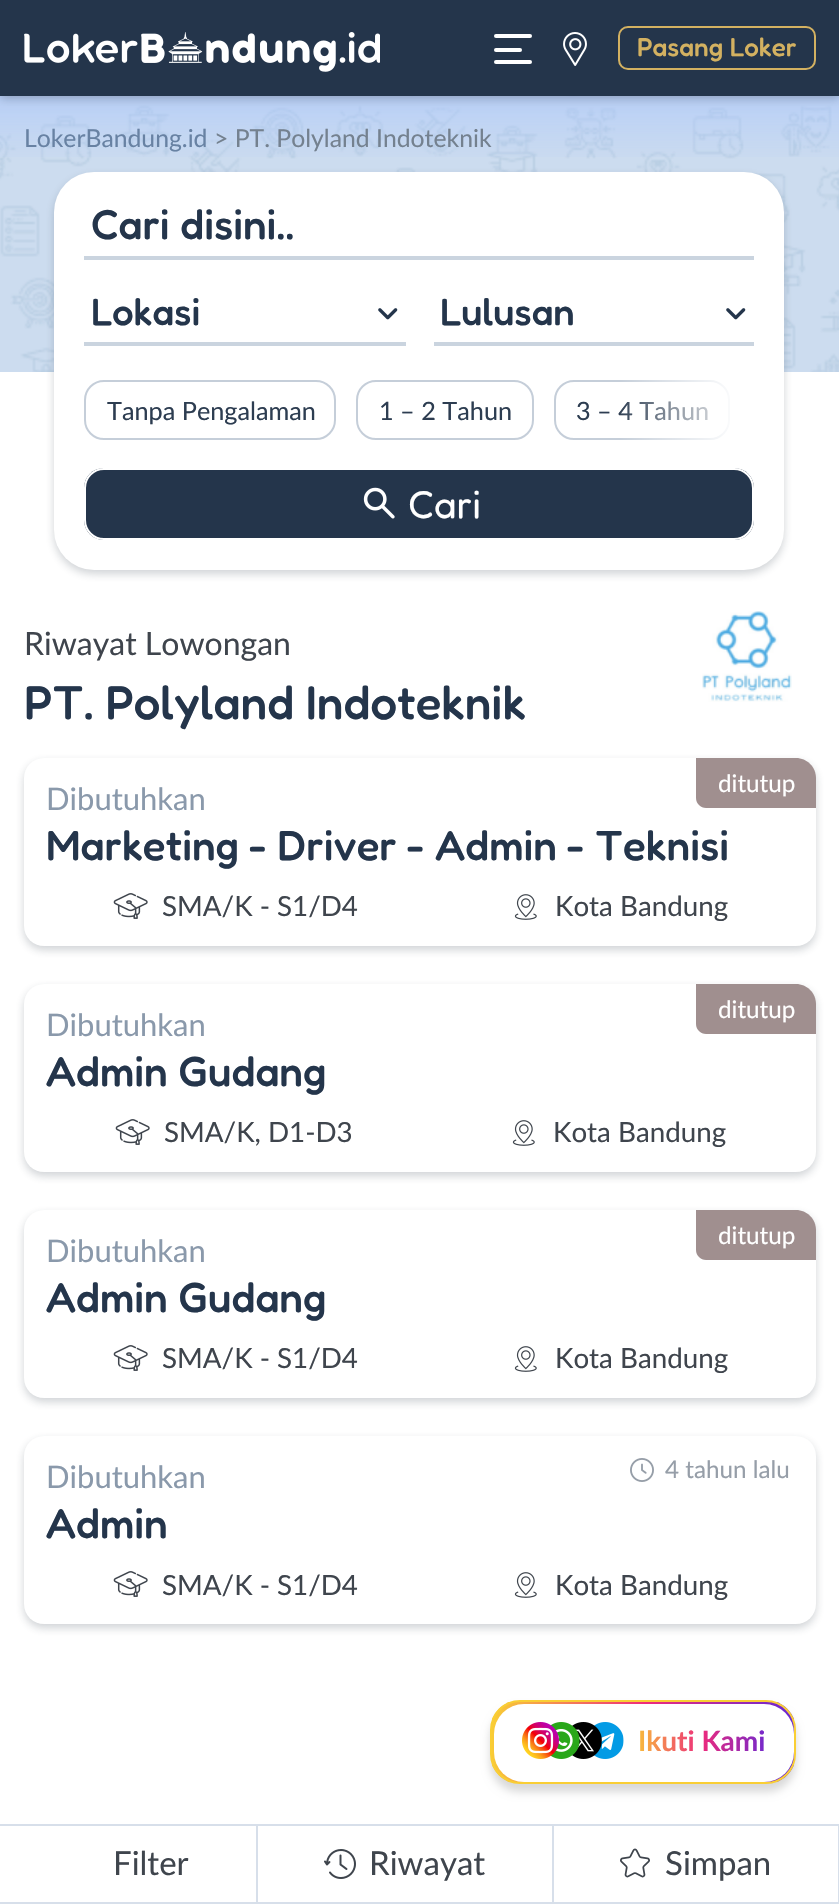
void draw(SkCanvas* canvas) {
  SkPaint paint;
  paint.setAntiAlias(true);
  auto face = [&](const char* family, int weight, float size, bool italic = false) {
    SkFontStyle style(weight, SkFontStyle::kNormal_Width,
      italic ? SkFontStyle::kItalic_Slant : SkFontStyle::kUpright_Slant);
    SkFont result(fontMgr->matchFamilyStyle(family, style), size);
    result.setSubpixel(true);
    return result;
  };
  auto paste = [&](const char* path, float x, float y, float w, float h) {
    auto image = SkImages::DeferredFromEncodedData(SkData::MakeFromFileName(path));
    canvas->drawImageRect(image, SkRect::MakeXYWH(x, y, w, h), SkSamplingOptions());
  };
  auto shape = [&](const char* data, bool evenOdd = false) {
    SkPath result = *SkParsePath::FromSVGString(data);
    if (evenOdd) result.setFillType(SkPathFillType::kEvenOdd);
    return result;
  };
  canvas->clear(0xffffffff);
  paint.setColor(0xffccdcef);
  canvas->drawRect(SkRect::MakeXYWH(0, 96, 839, 276), paint);
  paste("img/3.png", 0, 96, 839, 276);
  {
    const SkColor colors[] = {0x82a6c4ff, 0x00a6c4ff};
    const float stops[] = {0, 0.25f};
    const SkPoint ends[] = {{420, 96}, {420, 372}};
    paint.setShader(SkGradientShader::MakeLinear(ends, colors, stops, 2, SkTileMode::kClamp));
    paint.setAlpha(255);
  }
  canvas->drawRect(SkRect::MakeXYWH(0, 96, 839, 61), paint);
  paint.setShader(nullptr);
  paint.setColor(0x40000000);
  paint.setMaskFilter(SkMaskFilter::MakeBlur(kNormal_SkBlurStyle, 5));
  canvas->drawRect(SkRect::MakeXYWH(0, 2, 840, 96), paint);
  paint.setMaskFilter(nullptr);
  paint.setColor(0xff24354b);
  canvas->drawRect(SkRect::MakeXYWH(0, 0, 839, 96), paint);
  paste("img/1.png", 24, 32, 356, 40);
  paint.setColor(0xffffffff);
  canvas->drawRoundRect(SkRect::MakeXYWH(494, 34, 38, 4), 2, 2, paint);
  canvas->drawRoundRect(SkRect::MakeXYWH(494, 48, 28, 4), 2, 2, paint);
  canvas->drawRoundRect(SkRect::MakeXYWH(494, 60, 38, 4), 2, 2, paint);
  paste("img/2.png", 563, 32, 24, 34);
  paint.setStroke(true);
  paint.setStrokeWidth(2);
  paint.setColor(0xffd3b161);
  canvas->drawRoundRect(SkRect::MakeXYWH(619, 27, 196, 42), 9, 9, paint);
  paint.setStroke(false);
  paint.setColor(0x36222f3f);
  paint.setMaskFilter(SkMaskFilter::MakeBlur(kNormal_SkBlurStyle, 4));
  canvas->drawRoundRect(SkRect::MakeXYWH(54, 176, 730, 398), 40, 40, paint);
  paint.setMaskFilter(nullptr);
  paint.setColor(0xffffffff);
  canvas->drawRoundRect(SkRect::MakeXYWH(54, 172, 730, 398), 40, 40, paint);
  paint.setColor(0xffcad4df);
  canvas->drawRect(SkRect::MakeXYWH(84, 256, 670, 4), paint);
  canvas->drawRect(SkRect::MakeXYWH(84, 342, 322, 4), paint);
  paste("img/4.png", 378, 308, 20, 12);
  canvas->drawRect(SkRect::MakeXYWH(434, 342, 320, 4), paint);
  paste("img/4.png", 726, 308, 20, 12);
  paint.setStroke(true);
  paint.setColor(0xffc5ced9);
  canvas->drawRoundRect(SkRect::MakeXYWH(85, 381, 250, 58), 19, 19, paint);
  canvas->drawRoundRect(SkRect::MakeXYWH(357, 381, 176, 58), 19, 19, paint);
  canvas->drawRoundRect(SkRect::MakeXYWH(555, 381, 174, 58), 19, 19, paint);
  paint.setStroke(false);
  paint.setColor(0xff24354b);
  canvas->drawRoundRect(SkRect::MakeXYWH(84, 468, 670, 72), 20, 20, paint);
  paste("img/5.png", 363, 487, 32, 32);
  paint.setStroke(true);
  paint.setColor(0xffffffff);
  canvas->drawRoundRect(SkRect::MakeXYWH(85, 469, 668, 70), 19, 19, paint);
  paste("img/6.png", 702, 611, 90, 91);
  paint.setStroke(false);
  paint.setColor(0x36222f3f);
  paint.setMaskFilter(SkMaskFilter::MakeBlur(kNormal_SkBlurStyle, 4));
  canvas->drawRoundRect(SkRect::MakeXYWH(24, 762, 792, 188), 20, 20, paint);
  paint.setMaskFilter(nullptr);
  paint.setColor(0xffffffff);
  canvas->drawRoundRect(SkRect::MakeXYWH(24, 758, 792, 188), 20, 20, paint);
  paint.setColor(0xffa08f8f);
  canvas->drawPath(shape("M696 758H796C807 758 816 767 816 778V808H706C700.5 808 696 803.5 696 798Z"), paint);
  paste("img/7.png", 113, 893, 35, 26);
  paste("img/8.png", 514, 894, 23, 26);
  paint.setColor(0x36222f3f);
  paint.setMaskFilter(SkMaskFilter::MakeBlur(kNormal_SkBlurStyle, 4));
  canvas->drawRoundRect(SkRect::MakeXYWH(24, 988, 792, 188), 20, 20, paint);
  paint.setMaskFilter(nullptr);
  paint.setColor(0xffffffff);
  canvas->drawRoundRect(SkRect::MakeXYWH(24, 984, 792, 188), 20, 20, paint);
  paint.setColor(0xffa08f8f);
  canvas->drawPath(shape("M696 984H796C807 984 816 993 816 1004V1034H706C700.5 1034 696 1029.5 696 1024Z"), paint);
  paste("img/7.png", 115, 1119, 35, 26);
  paste("img/8.png", 512, 1120, 23, 26);
  paint.setColor(0x36222f3f);
  paint.setMaskFilter(SkMaskFilter::MakeBlur(kNormal_SkBlurStyle, 4));
  canvas->drawRoundRect(SkRect::MakeXYWH(24, 1214, 792, 188), 20, 20, paint);
  paint.setMaskFilter(nullptr);
  paint.setColor(0xffffffff);
  canvas->drawRoundRect(SkRect::MakeXYWH(24, 1210, 792, 188), 20, 20, paint);
  paint.setColor(0xffa08f8f);
  canvas->drawPath(shape("M696 1210H796C807 1210 816 1219 816 1230V1260H706C700.5 1260 696 1255.5 696 1250Z"), paint);
  paste("img/7.png", 113, 1345, 35, 26);
  paste("img/8.png", 514, 1346, 23, 26);
  paint.setColor(0x36222f3f);
  paint.setMaskFilter(SkMaskFilter::MakeBlur(kNormal_SkBlurStyle, 4));
  canvas->drawRoundRect(SkRect::MakeXYWH(24, 1440, 792, 188), 20, 20, paint);
  paint.setMaskFilter(nullptr);
  paint.setColor(0xffffffff);
  canvas->drawRoundRect(SkRect::MakeXYWH(24, 1436, 792, 188), 20, 20, paint);
  paste("img/9.png", 630, 1458, 24, 24);
  paste("img/7.png", 113, 1571, 35, 26);
  paste("img/8.png", 514, 1572, 23, 26);
  paint.setColor(0x26000000);
  paint.setMaskFilter(SkMaskFilter::MakeBlur(kNormal_SkBlurStyle, 4));
  canvas->drawRoundRect(SkRect::MakeXYWH(490, 1708, 306, 84), 30, 30, paint);
  paint.setMaskFilter(nullptr);
  canvas->save();
  canvas->clipPath(shape("M520 1700H766C782.5 1700 796 1713.5 796 1730V1754C796 1770.5 782.5 1784 766 1784H520C503.5 1784 490 1770.5 490 1754V1730C490 1713.5 503.5 1700 520 1700Z"), true);
  {
    const SkColor colors[] = {0xfff9ce34, 0xffee2a7b, 0xff6228d7};
    const float stops[] = {0, 0.5f, 1};
    const SkPoint ends[] = {{490, 1731}, {796, 1753}};
    paint.setShader(SkGradientShader::MakeLinear(ends, colors, stops, 3, SkTileMode::kClamp));
    paint.setAlpha(255);
  }
  canvas->drawRect(SkRect::MakeXYWH(492, 1702, 302, 80), paint);
  canvas->restore();
  paint.setStroke(true);
  paint.setShader(nullptr);
  paint.setColor(0xfff9ce34);
  canvas->drawRoundRect(SkRect::MakeXYWH(491, 1701, 304, 82), 29, 29, paint);
  paint.setStroke(false);
  paint.setColor(0xffffffff);
  canvas->drawRoundRect(SkRect::MakeXYWH(494, 1704, 300, 78), 30, 30, paint);
  paste("img/10.png", 522, 1722, 102, 37);
  {
    const struct { float x, y, w, h; SkColor color; } items[] = {
      {0, 1824, 839, 2, 0xffd7dfea},
      {256, 1824, 2, 80, 0xffd7dfea},
      {0, 1902, 258, 2, 0xffd7dfea},
      {552, 1824, 2, 80, 0xffd7dfea},
      {258, 1902, 296, 2, 0xffd7dfea},
    };
    for (auto [x, y, w, h, color] : items) {
      paint.setColor(color);
      canvas->drawRect(SkRect::MakeXYWH(x, y, w, h), paint);
    }
  }
  paste("img/11.png", 324, 1849, 32, 30);
  canvas->drawRect(SkRect::MakeXYWH(838, 1824, 1, 80), paint);
  canvas->drawRect(SkRect::MakeXYWH(554, 1902, 285, 2), paint);
  paste("img/12.png", 620, 1848, 30, 30);
  auto f0 = face("Fredoka", 500, 26);
  paint.setColor(0xffd3b161);
  canvas->drawString("Pasang Loker", 637, 56, f0, paint);
  auto f1 = face("Lato", 400, 24.75f);
  paint.setColor(0xff6882a3);
  canvas->drawString("LokerBandung.id", 24, 147, f1, paint);
  paint.setColor(0xff74818f);
  canvas->drawString("> PT. Polyland Indoteknik", 214, 147, f1, paint);
  auto f2 = face("Fredoka", 500, 42);
  paint.setColor(0xff24354b);
  canvas->drawString("Cari disini..", 91, 239, f2, paint);
  auto f3 = face("Fredoka", 500, 38);
  canvas->drawString("Lokasi", 91, 325, f3, paint);
  canvas->drawString("Lulusan", 440, 325, f3, paint);
  auto f4 = face("Lato", 400, 25.25f);
  paint.setColor(0xff2d3d51);
  {
    const struct { const char* s; float x, y; } items[] = {
      {"Tanpa Pengalaman", 107, 420},
      {"1 – 2 Tahun", 379, 420},
      {"3 – 4 Tahun", 576, 420},
    };
    for (auto [s, x, y] : items) {
      canvas->drawString(s, x, y, f4, paint);
    }
  }
  {
    const SkColor colors[] = {0x00ffffff, 0xffffffff};
    const float stops[] = {0, 0.9f};
    const SkPoint ends[] = {{617, 408}, {757, 408}};
    paint.setShader(SkGradientShader::MakeLinear(ends, colors, stops, 2, SkTileMode::kClamp));
    paint.setAlpha(255);
  }
  canvas->drawRect(SkRect::MakeXYWH(620, 380, 110, 60), paint);
  auto f5 = face("Fredoka", 400, 39);
  paint.setShader(nullptr);
  paint.setColor(0xffffffff);
  canvas->drawString("Cari", 408, 518, f5, paint);
  auto f6 = face("Lato", 400, 32);
  paint.setColor(0xff3f454d);
  canvas->drawString("Riwayat Lowongan", 24, 655, f6, paint);
  auto f7 = face("Fredoka", 500, 47.4f);
  paint.setColor(0xff24354b);
  canvas->drawString("PT. Polyland Indoteknik", 24, 719, f7, paint);
  auto f8 = face("Lato", 400, 31);
  paint.setColor(0xff8a99ab);
  canvas->drawString("Dibutuhkan", 46, 810, f8, paint);
  auto f9 = face("Lato", 400, 24.25f);
  paint.setColor(0xffffffff);
  canvas->drawString("ditutup", 718, 792, f9, paint);
  auto f10 = face("Fredoka", 500, 42.1f);
  paint.setColor(0xff24354b);
  canvas->drawString("Marketing - Driver - Admin - Teknisi", 46, 860, f10, paint);
  auto f11 = face("Lato", 400, 27.75f);
  paint.setColor(0xff3f454d);
  canvas->drawString("SMA/K - S1/D4", 162, 916, f11, paint);
  canvas->drawString("Kota Bandung", 555, 916, f11, paint);
  paint.setColor(0xff8a99ab);
  canvas->drawString("Dibutuhkan", 46, 1036, f8, paint);
  paint.setColor(0xffffffff);
  canvas->drawString("ditutup", 718, 1018, f9, paint);
  paint.setColor(0xff24354b);
  canvas->drawString("Admin Gudang", 46, 1086, f10, paint);
  paint.setColor(0xff3f454d);
  canvas->drawString("SMA/K, D1-D3", 164, 1142, f11, paint);
  canvas->drawString("Kota Bandung", 553, 1142, f11, paint);
  paint.setColor(0xff8a99ab);
  canvas->drawString("Dibutuhkan", 46, 1262, f8, paint);
  paint.setColor(0xffffffff);
  canvas->drawString("ditutup", 718, 1244, f9, paint);
  paint.setColor(0xff24354b);
  canvas->drawString("Admin Gudang", 46, 1312, f10, paint);
  paint.setColor(0xff3f454d);
  canvas->drawString("SMA/K - S1/D4", 162, 1368, f11, paint);
  canvas->drawString("Kota Bandung", 555, 1368, f11, paint);
  paint.setColor(0xff8a99ab);
  canvas->drawString("Dibutuhkan", 46, 1488, f8, paint);
  paint.setColor(0xff969ea8);
  canvas->drawString("4 tahun lalu", 665, 1478, f9, paint);
  paint.setColor(0xff24354b);
  canvas->drawString("Admin", 46, 1538, f10, paint);
  paint.setColor(0xff3f454d);
  canvas->drawString("SMA/K - S1/D4", 162, 1595, f11, paint);
  canvas->drawString("Kota Bandung", 555, 1595, f11, paint);
  auto f12 = face("Lato", 700, 28);
  {
    const SkColor colors[] = {0xfff8ba3d, 0xffed2a7c, 0xff7529cb};
    const float stops[] = {0, 0.5f, 1};
    const SkPoint ends[] = {{638, 1744}, {765, 1744}};
    paint.setShader(SkGradientShader::MakeLinear(ends, colors, stops, 3, SkTileMode::kClamp));
    paint.setAlpha(255);
  }
  canvas->drawString("Ikuti Kami", 638, 1751, f12, paint);
  auto f13 = face("Lato", 400, 33);
  paint.setShader(nullptr);
  paint.setColor(0xff3f454d);
  {
    const struct { const char* s; float x, y; } items[] = {
      {"Filter", 113, 1875},
      {"Riwayat", 369, 1875},
      {"Simpan", 665, 1875},
    };
    for (auto [s, x, y] : items) {
      canvas->drawString(s, x, y, f13, paint);
    }
  }
}
